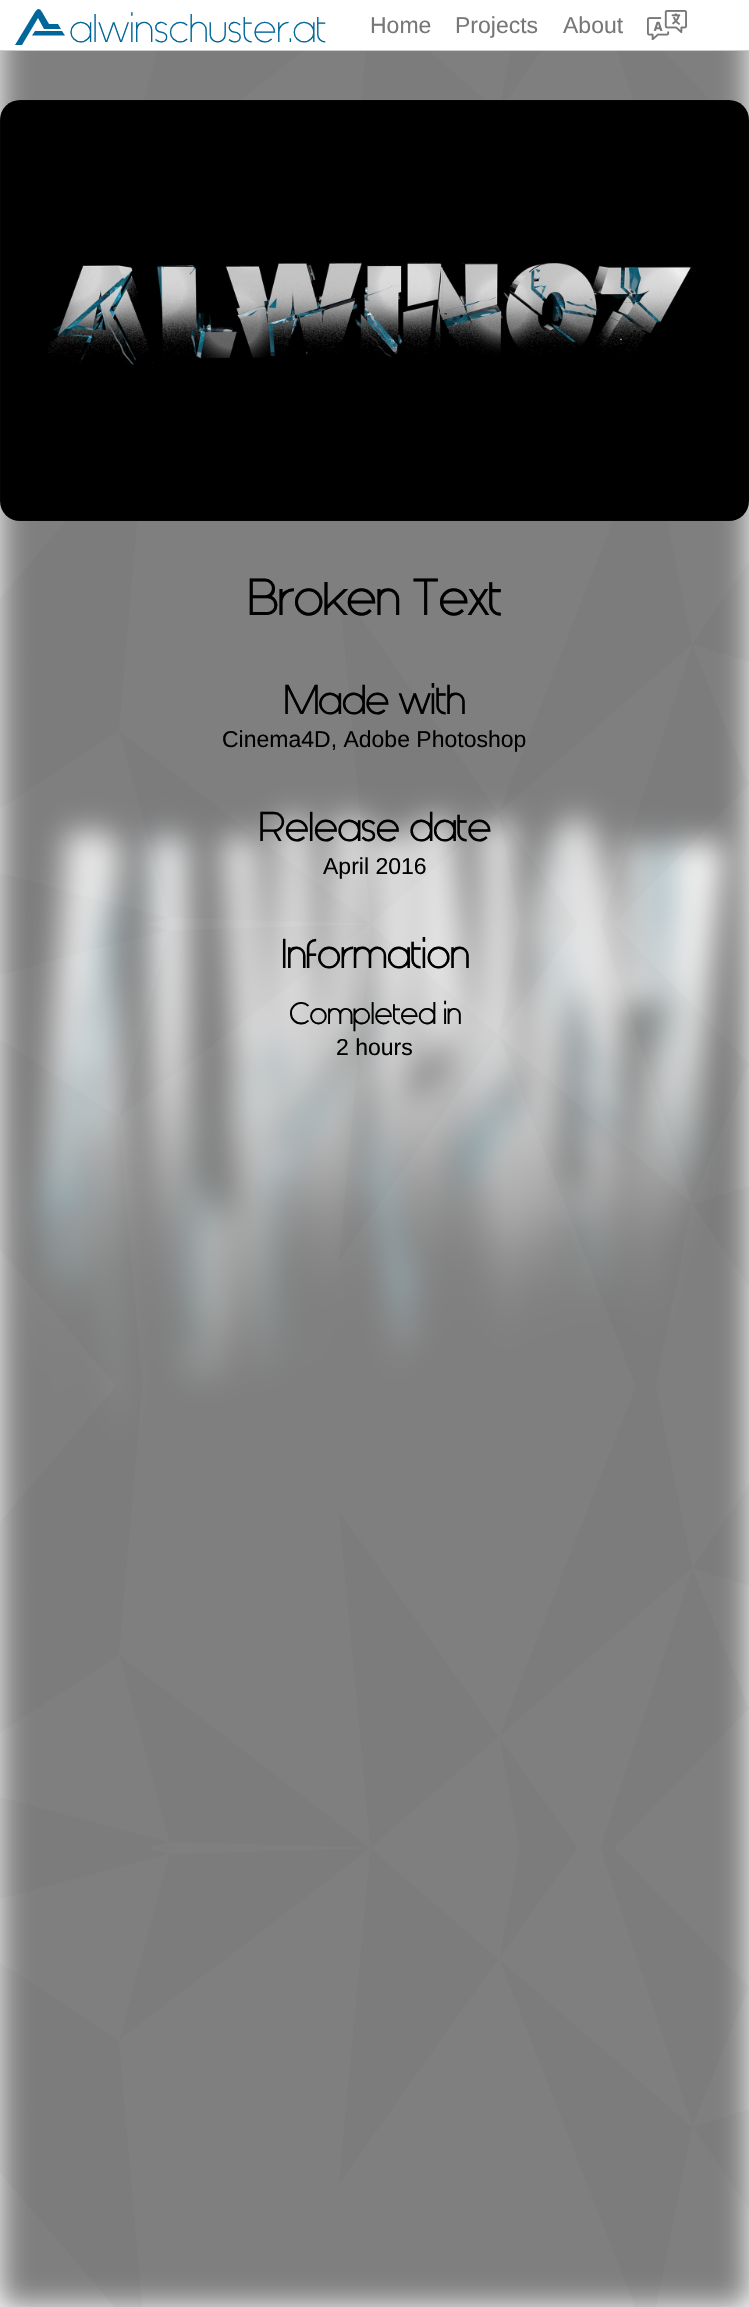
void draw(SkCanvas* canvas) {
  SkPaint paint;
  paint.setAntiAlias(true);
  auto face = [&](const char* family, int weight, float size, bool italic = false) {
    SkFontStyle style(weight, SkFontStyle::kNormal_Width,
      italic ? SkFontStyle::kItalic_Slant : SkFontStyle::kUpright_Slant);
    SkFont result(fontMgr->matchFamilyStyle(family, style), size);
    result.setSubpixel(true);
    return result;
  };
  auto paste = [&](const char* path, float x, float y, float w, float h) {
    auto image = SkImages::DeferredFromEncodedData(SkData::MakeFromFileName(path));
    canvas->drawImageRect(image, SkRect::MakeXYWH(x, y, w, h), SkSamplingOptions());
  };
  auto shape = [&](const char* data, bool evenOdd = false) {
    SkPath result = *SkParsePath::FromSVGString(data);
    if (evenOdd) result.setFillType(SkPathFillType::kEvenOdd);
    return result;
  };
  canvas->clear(0xffffffff);
  paste("img/1.png", 0, 51, 749, 2256);
  paint.setColor(0xffcccccc);
  canvas->drawRect(SkRect::MakeXYWH(0, 50, 749, 1), paint);
  paint.setColor(0xff016699);
  canvas->drawPath(shape("M15 45H22L38 18L44 29H61L58 24H49L42 12C42 12 39 5 35 12Z"), paint);
  canvas->drawPath(shape("M32 35.5L35 31H62L65 35.5Z"), paint);
  paste("img/2.png", 647, 10, 40, 30);
  paste("img/3.png", 0, 51, 749, 2256);
  paste("img/4.png", 0, 100, 749, 421);
  auto f0 = face("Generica", 400, 40);
  paint.setColor(0xff006699);
  canvas->drawString("alwinschuster.at", 69, 42, f0, paint);
  auto f1 = face("Liberation Sans", 400, 23);
  paint.setColor(0xff777777);
  {
    const struct { const char* s; float x, y; } items[] = {
      {"Home", 370, 33},
      {"Projects", 455, 33},
      {"About", 563, 33},
    };
    for (auto [s, x, y] : items) {
      canvas->drawString(s, x, y, f1, paint);
    }
  }
  auto f2 = face("Generica", 700, 50);
  paint.setColor(0xff000000);
  canvas->drawString("Broken Text", 248, 615, f2, paint);
  auto f3 = face("Generica", 700, 40);
  canvas->drawString("Made with", 284, 714, f3, paint);
  canvas->drawString("Cinema4D, Adobe Photoshop", 222, 747, f1, paint);
  canvas->drawString("Release date", 259, 841, f3, paint);
  canvas->drawString("April 2016", 323, 874, f1, paint);
  canvas->drawString("Information", 281, 968, f3, paint);
  auto f4 = face("Generica", 700, 30);
  canvas->drawString("Completed in", 289, 1024, f4, paint);
  canvas->drawString("2 hours", 336, 1055, f1, paint);
}
